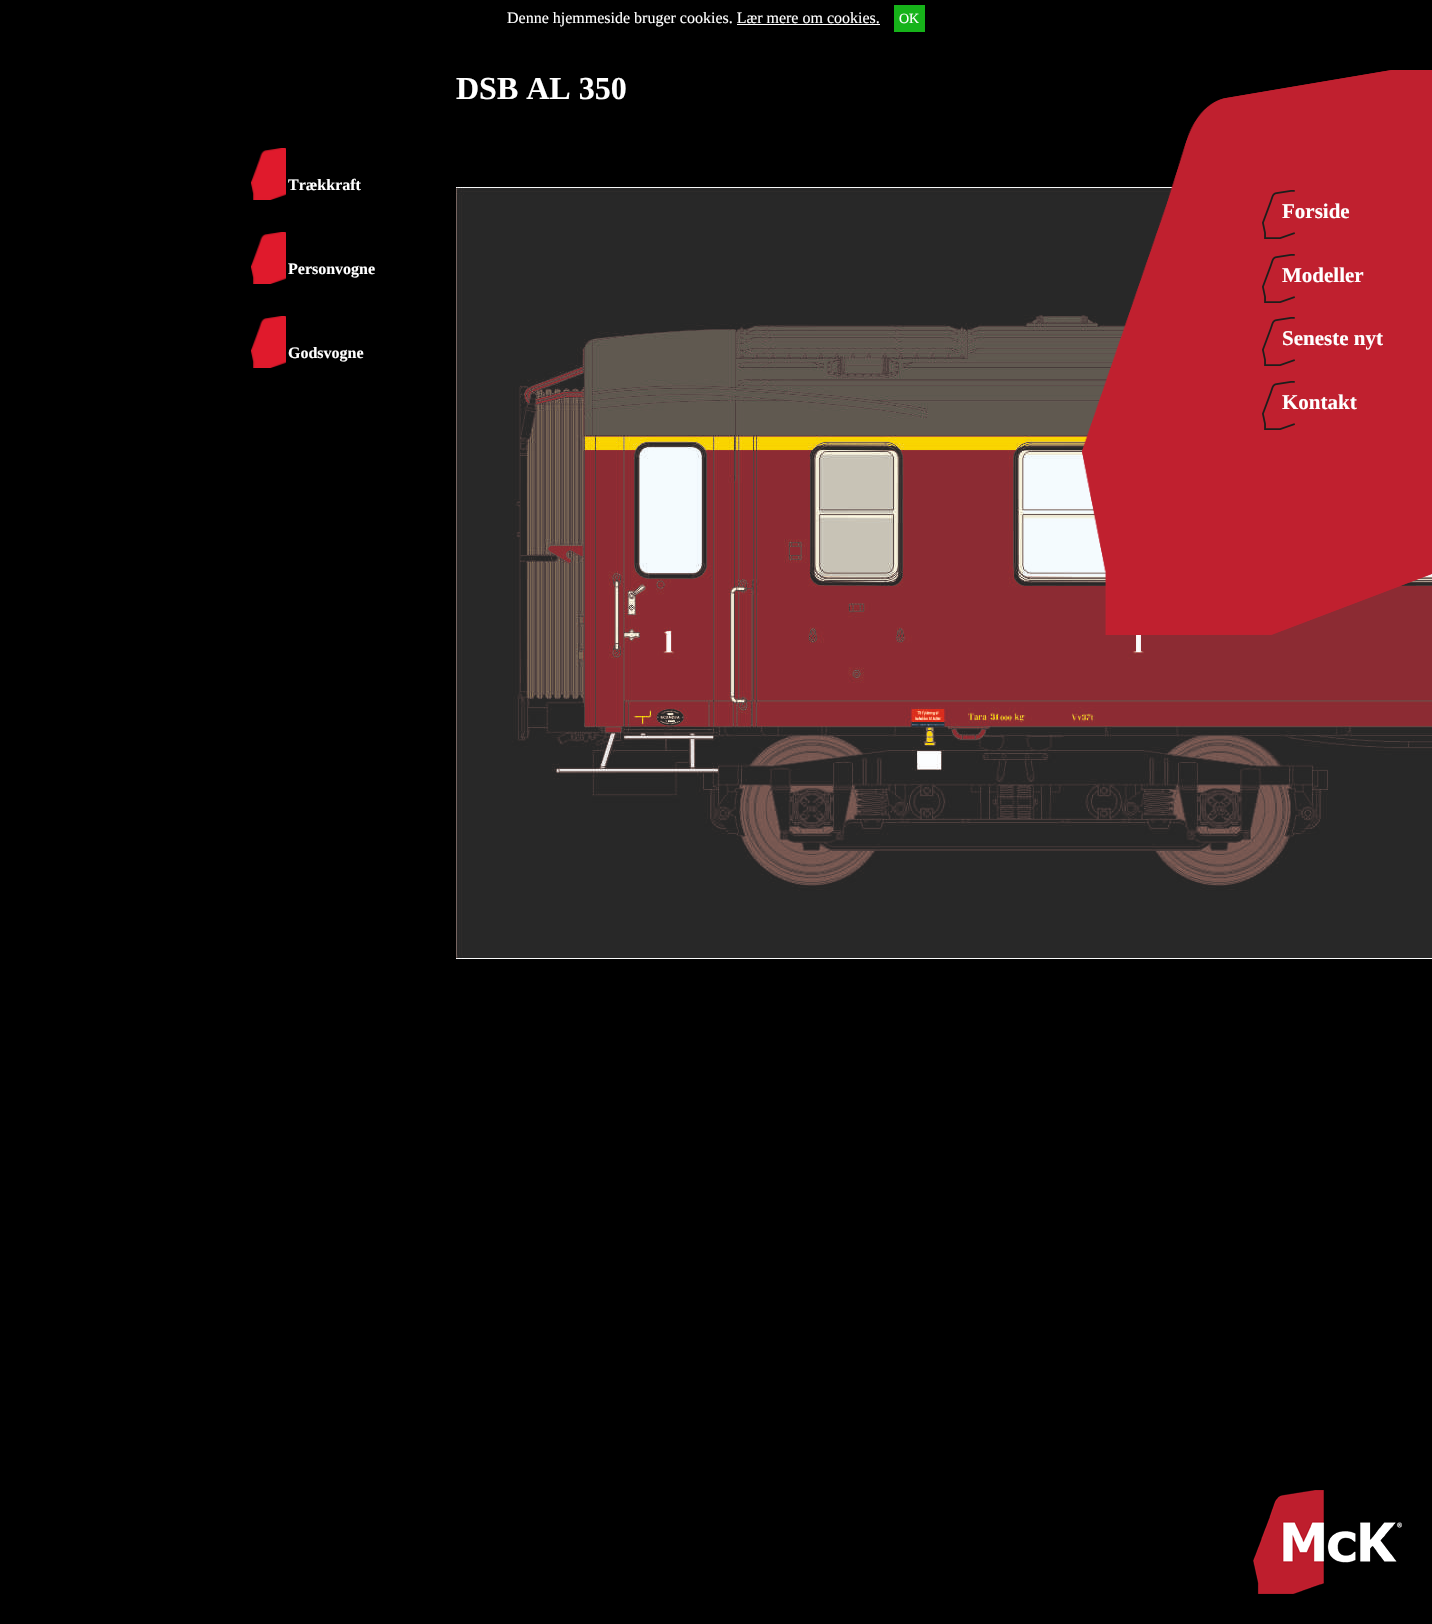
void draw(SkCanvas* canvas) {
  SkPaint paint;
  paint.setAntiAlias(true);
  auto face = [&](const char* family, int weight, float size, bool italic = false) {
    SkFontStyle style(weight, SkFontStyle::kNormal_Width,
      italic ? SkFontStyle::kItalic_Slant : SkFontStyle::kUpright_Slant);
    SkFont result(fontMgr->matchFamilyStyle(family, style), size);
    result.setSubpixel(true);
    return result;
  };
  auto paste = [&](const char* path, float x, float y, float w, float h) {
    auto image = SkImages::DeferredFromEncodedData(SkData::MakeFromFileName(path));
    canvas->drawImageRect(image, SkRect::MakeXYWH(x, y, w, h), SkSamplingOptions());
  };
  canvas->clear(0xff000000);
  paint.setColor(0xff16b319);
  canvas->drawRect(SkRect::MakeXYWH(894, 5, 31, 27), paint);
  paint.setColor(0xffffffff);
  canvas->drawRect(SkRect::MakeXYWH(737, 24, 143, 1), paint);
  paste("img/1.png", 456, 187, 976, 772);
  paste("img/2.png", 251, 148, 35, 52);
  paste("img/2.png", 251, 232, 35, 52);
  paste("img/2.png", 251, 316, 35, 52);
  paste("img/3.png", 1082, 70, 350, 565);
  paste("img/8.png", 1253, 1490, 149, 104);
  auto f0 = face("Liberation Serif", 400, 16);
  canvas->drawString("Denne hjemmeside bruger cookies. Lær mere om cookies.", 507, 23, f0, paint);
  auto f1 = face("Liberation Serif", 400, 14);
  canvas->drawString("OK", 899, 23, f1, paint);
  auto f2 = face("Liberation Serif", 700, 32);
  canvas->drawString("DSB AL 350", 456, 99, f2, paint);
  auto f3 = face("Liberation Serif", 700, 16);
  {
    const struct { const char* s; float x, y; } items[] = {
      {"Trækkraft", 288, 190},
      {"Personvogne", 288, 274},
      {"Godsvogne", 288, 358},
    };
    for (auto [s, x, y] : items) {
      canvas->drawString(s, x, y, f3, paint);
    }
  }
  auto f4 = face("Liberation Serif", 700, 21);
  canvas->drawString("Forside", 1282, 218, f4, paint);
  paste("img/4.png", 1262, 190, 33, 49);
  canvas->drawString("Modeller", 1282, 282, f4, paint);
  paste("img/5.png", 1262, 254, 33, 49);
  canvas->drawString("Seneste nyt", 1282, 345, f4, paint);
  paste("img/6.png", 1262, 317, 33, 49);
  canvas->drawString("Kontakt", 1282, 409, f4, paint);
  paste("img/7.png", 1262, 381, 33, 49);
}
